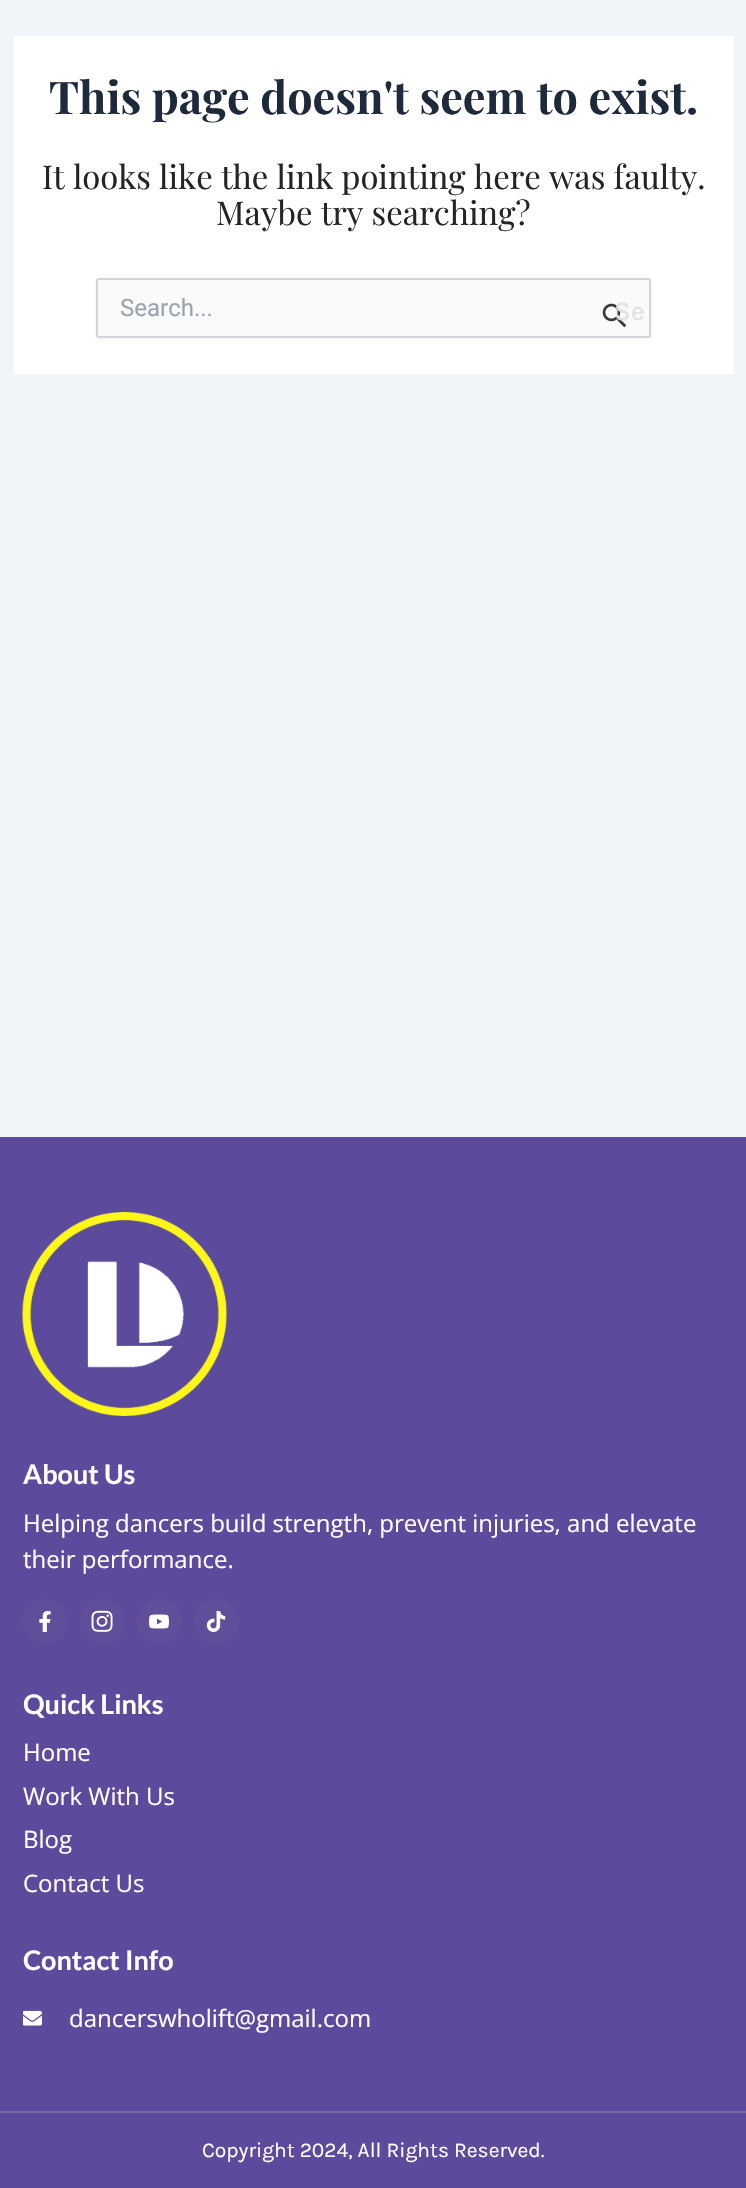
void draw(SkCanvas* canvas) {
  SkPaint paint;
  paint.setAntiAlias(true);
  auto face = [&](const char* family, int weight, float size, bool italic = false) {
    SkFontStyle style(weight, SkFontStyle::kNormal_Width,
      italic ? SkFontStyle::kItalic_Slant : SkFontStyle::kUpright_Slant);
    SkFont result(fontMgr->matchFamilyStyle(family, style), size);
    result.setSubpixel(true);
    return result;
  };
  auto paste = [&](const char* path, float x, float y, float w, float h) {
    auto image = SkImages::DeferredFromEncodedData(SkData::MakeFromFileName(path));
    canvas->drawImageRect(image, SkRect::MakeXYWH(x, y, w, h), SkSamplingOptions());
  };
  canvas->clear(0xfff0f5fa);
  paint.setColor(0xffffffff);
  canvas->drawRect(SkRect::MakeXYWH(14, 36, 720, 338), paint);
  paint.setColor(0x0d000000);
  paint.setMaskFilter(SkMaskFilter::MakeBlur(kNormal_SkBlurStyle, 1.5f));
  canvas->drawRoundRect(SkRect::MakeXYWH(96, 279, 555, 60), 3, 3, paint);
  paint.setMaskFilter(nullptr);
  paint.setColor(0xfffafafa);
  canvas->drawRoundRect(SkRect::MakeXYWH(97, 279, 553, 58), 2, 2, paint);
  paint.setStroke(true);
  paint.setStrokeWidth(2);
  paint.setColor(0xffd1d5db);
  canvas->drawRoundRect(SkRect::MakeXYWH(97, 279, 553, 58), 2, 2, paint);
  paste("img/1.png", 602, 303, 24, 25);
  paint.setStroke(false);
  paint.setColor(0xff5c4a9c);
  canvas->drawRect(SkRect::MakeXYWH(0, 1137, 746, 1051), paint);
  paint.setColor(0xff7967a0);
  canvas->drawRect(SkRect::MakeXYWH(0, 2111, 746, 2), paint);
  paste("img/2.png", 22, 1212, 205, 204);
  paint.setColor(0xff604e9b);
  canvas->drawCircle(45.5f, 1621.5f, 22.5f, paint);
  paste("img/3.png", 39, 1611, 12, 21);
  canvas->drawCircle(102.5f, 1621.5f, 22.5f, paint);
  paste("img/4.png", 91, 1610, 22, 22);
  canvas->drawCircle(159.5f, 1621.5f, 22.5f, paint);
  paste("img/5.png", 149, 1614, 20, 15);
  canvas->drawCircle(216.5f, 1621.5f, 22.5f, paint);
  paste("img/6.png", 206, 1611, 20, 21);
  paste("img/7.png", 23, 2010, 19, 16);
  auto f0 = face("Playfair Display", 700, 45);
  paint.setColor(0xff1e293b);
  canvas->drawString("This page doesn't seem to exist.", 49, 114, f0, paint);
  auto f1 = face("Playfair Display", 400, 32.8f);
  paint.setColor(0xff242424);
  canvas->drawString("It looks like the link pointing here was faulty.", 42, 189, f1, paint);
  canvas->drawString("Maybe try searching?", 216, 225, f1, paint);
  auto f2 = face("Roboto", 400, 24);
  paint.setColor(0xff9ca3af);
  canvas->drawString("Search...", 120, 316, f2, paint);
  auto f3 = face("Karla", 500, 27);
  paint.setColor(0xffe2e2e2);
  canvas->drawString("Se", 614, 320, f3, paint);
  auto f4 = face("Lato", 700, 27);
  paint.setColor(0xffffffff);
  canvas->drawString("About Us", 23, 1484, f4, paint);
  auto f5 = face("Open Sans", 400, 24);
  canvas->drawString("Helping dancers build strength, prevent injuries, and elevate", 23, 1532, f5, paint);
  canvas->drawString("their performance.", 23, 1568, f5, paint);
  canvas->drawString("Quick Links", 23, 1714, f4, paint);
  {
    const struct { const char* s; float x, y; } items[] = {
      {"Home", 23, 1761},
      {"Work With Us", 23, 1805},
      {"Blog", 23, 1848},
      {"Contact Us", 23, 1892},
    };
    for (auto [s, x, y] : items) {
      canvas->drawString(s, x, y, f5, paint);
    }
  }
  canvas->drawString("Contact Info", 23, 1970, f4, paint);
  canvas->drawString("dancerswholift@gmail.com", 69, 2027, f5, paint);
  auto f6 = face("Karla", 400, 21);
  canvas->drawString("Copyright 2024, All Rights Reserved.", 202, 2157, f6, paint);
}
